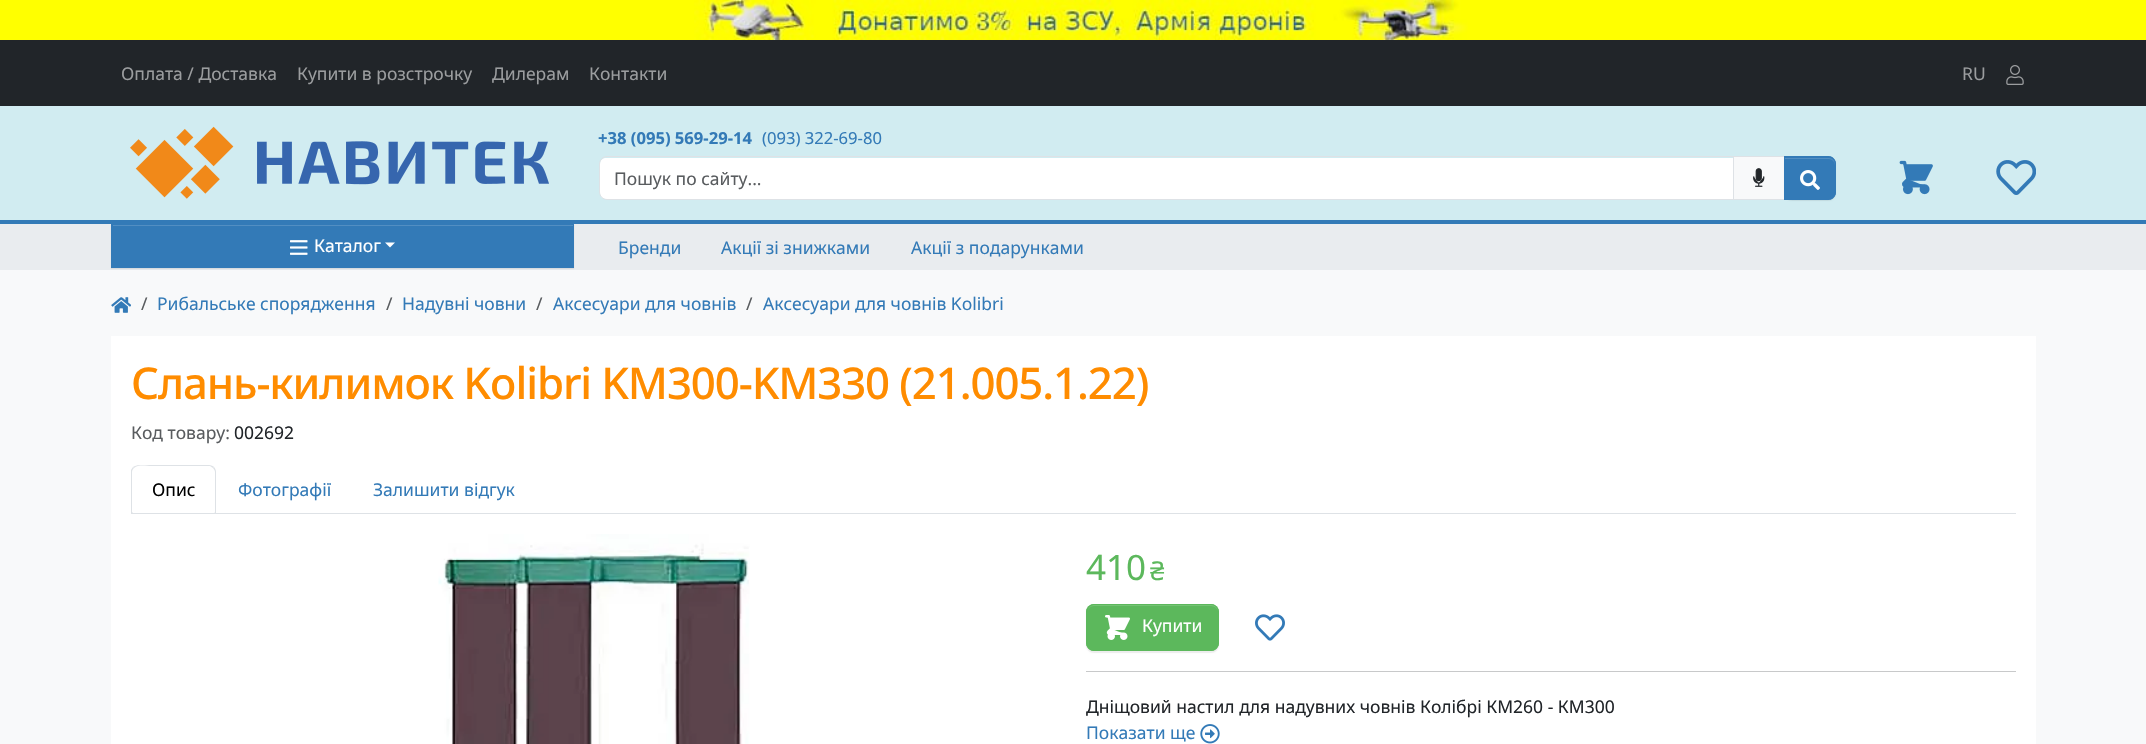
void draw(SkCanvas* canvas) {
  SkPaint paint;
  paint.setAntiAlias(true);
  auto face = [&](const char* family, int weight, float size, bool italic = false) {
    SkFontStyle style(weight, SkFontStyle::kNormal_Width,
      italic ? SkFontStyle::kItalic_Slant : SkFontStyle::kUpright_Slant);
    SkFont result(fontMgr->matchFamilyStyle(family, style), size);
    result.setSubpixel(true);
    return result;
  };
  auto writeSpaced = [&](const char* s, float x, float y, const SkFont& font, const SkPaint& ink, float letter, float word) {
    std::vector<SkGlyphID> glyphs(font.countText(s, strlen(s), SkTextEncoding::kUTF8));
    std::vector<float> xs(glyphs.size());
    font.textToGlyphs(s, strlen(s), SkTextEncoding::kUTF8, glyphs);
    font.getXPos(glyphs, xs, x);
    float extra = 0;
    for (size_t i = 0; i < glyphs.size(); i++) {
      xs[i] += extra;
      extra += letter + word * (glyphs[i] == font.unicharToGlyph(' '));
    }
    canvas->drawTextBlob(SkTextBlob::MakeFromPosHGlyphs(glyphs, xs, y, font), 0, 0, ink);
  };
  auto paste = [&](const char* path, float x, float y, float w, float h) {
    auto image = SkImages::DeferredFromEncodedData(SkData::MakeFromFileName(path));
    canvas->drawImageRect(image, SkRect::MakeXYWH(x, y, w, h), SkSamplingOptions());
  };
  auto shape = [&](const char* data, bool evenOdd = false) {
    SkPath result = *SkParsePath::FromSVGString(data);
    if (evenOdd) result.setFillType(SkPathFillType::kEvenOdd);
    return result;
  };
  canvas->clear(0xfff8f9fa);
  paint.setColor(0xffffff00);
  canvas->drawRect(SkRect::MakeXYWH(0, 0, 2146, 40), paint);
  paste("img/1.png", 694, 0, 774, 40);
  paint.setColor(0xffd1ecf1);
  canvas->drawRect(SkRect::MakeXYWH(0, 106, 2146, 114), paint);
  paint.setColor(0xff212529);
  canvas->drawRect(SkRect::MakeXYWH(0, 40, 2146, 66), paint);
  paste("img/2.png", 2006, 65, 18, 20);
  paint.setColor(0xff337ab7);
  canvas->drawRect(SkRect::MakeXYWH(0, 220, 2146, 4), paint);
  paste("img/3.png", 130, 126, 419, 73);
  paint.setColor(0xffffffff);
  canvas->drawPath(shape("M606 158H1733V199H606C602.5 199 600 196.5 600 193V164C600 160.5 602.5 158 606 158Z"), paint);
  paint.setColor(0xfff8f9fa);
  canvas->drawRect(SkRect::MakeXYWH(1733.5f, 156.5f, 51, 43), paint);
  paint.setStroke(true);
  paint.setStrokeWidth(1);
  paint.setColor(0xffdee2e6);
  canvas->drawRect(SkRect::MakeXYWH(1733.5f, 156.5f, 51, 43), paint);
  canvas->drawPath(shape("M607 156.5H1733.5V199.5H607C603 199.5 599.5 196 599.5 192V164C599.5 160 603 156.5 607 156.5Z"), paint);
  paste("img/4.png", 1753, 168, 12, 19);
  paint.setStroke(false);
  paint.setColor(0x12000000);
  paint.setMaskFilter(SkMaskFilter::MakeBlur(kNormal_SkBlurStyle, 0.5f));
  canvas->drawRoundRect(SkRect::MakeXYWH(1784, 158, 52, 43), 8, 8, paint);
  paint.setMaskFilter(nullptr);
  paint.setColor(0xff337ab7);
  canvas->drawPath(shape("M1784 156H1828C1832.5 156 1836 159.5 1836 164V192C1836 196.5 1832.5 200 1828 200H1784Z"), paint);
  paint.setColor(0xff528ec2);
  canvas->drawPath(shape("M1785 159H1829C1832 159 1835 162 1835 165V164C1835 161 1832 158 1829 158H1785Z"), paint);
  paint.setStroke(true);
  paint.setColor(0xff337ab7);
  canvas->drawPath(shape("M1784.5 156.5H1828C1832 156.5 1835.5 160 1835.5 164V192C1835.5 196 1832 199.5 1828 199.5H1784.5Z"), paint);
  paste("img/5.png", 1800, 170, 20, 20);
  paste("img/6.png", 1899, 160, 34, 35);
  paste("img/7.png", 1996, 160, 40, 35);
  paint.setStroke(false);
  paint.setColor(0xffe9ecef);
  canvas->drawRect(SkRect::MakeXYWH(0, 224, 2146, 46), paint);
  paint.setColor(0x12000000);
  paint.setMaskFilter(SkMaskFilter::MakeBlur(kNormal_SkBlurStyle, 0.5f));
  canvas->drawRect(SkRect::MakeXYWH(111, 225, 463, 44), paint);
  paint.setMaskFilter(nullptr);
  paint.setColor(0xff337ab7);
  canvas->drawRect(SkRect::MakeXYWH(111, 224, 463, 44), paint);
  paint.setColor(0xff528ec2);
  canvas->drawRect(SkRect::MakeXYWH(113, 225, 460, 1), paint);
  paste("img/8.png", 290, 240, 18, 15);
  paint.setColor(0xffffffff);
  canvas->drawPath(shape("M385 242.5H395L390 247.5Z"), paint);
  paste("img/9.png", 111, 297, 20, 16);
  canvas->drawRect(SkRect::MakeXYWH(111, 336, 1925, 408), paint);
  paint.setColor(0xffdee2e6);
  canvas->drawRect(SkRect::MakeXYWH(131, 513, 1885, 1), paint);
  canvas->drawPath(shape("M139 465C137 465 135 466 133 467L134 468C138 464 147 466 151 466H210L213 468L214 467C213 466 211 465 209 465Z"), paint);
  canvas->drawPath(shape("M214 467C215 468 216 470 216 472V514L214 512H215V472C215 471 214 469 213 468Z"), paint);
  canvas->save();
  canvas->clipRect(SkRect::MakeXYWH(131, 465, 1885, 48));
  paint.setColor(0xffffffff);
  canvas->drawPath(shape("M216 514H131L133 512H214Z"), paint);
  canvas->restore();
  paint.setColor(0xffdee2e6);
  canvas->drawPath(shape("M131 514V470L133 467L134 468C133 469 132 470 132 472V512H133Z"), paint);
  paste("img/10.png", 438, 534, 312, 210);
  paint.setColor(0x12000000);
  paint.setMaskFilter(SkMaskFilter::MakeBlur(kNormal_SkBlurStyle, 0.5f));
  canvas->drawRoundRect(SkRect::MakeXYWH(1086, 605, 133, 48), 8, 8, paint);
  paint.setMaskFilter(nullptr);
  paint.setColor(0xff5cb85c);
  canvas->drawRoundRect(SkRect::MakeXYWH(1086, 604, 133, 47), 8, 8, paint);
  paint.setColor(0xff74c374);
  canvas->drawPath(shape("M1094 606H1211C1215 606 1218 609 1218 612C1218 600 1198 605 1192 605H1114C1108 605 1088 600 1088 612C1088 609 1090 606 1094 606Z"), paint);
  paint.setStroke(true);
  paint.setColor(0xff5cb85c);
  canvas->drawRoundRect(SkRect::MakeXYWH(1086.5f, 604.5f, 132, 46), 7.5f, 7.5f, paint);
  paste("img/11.png", 1105, 615, 25, 25);
  paste("img/12.png", 1255, 614, 30, 27);
  paint.setStroke(false);
  paint.setColor(0xffc8c9ca);
  canvas->drawRect(SkRect::MakeXYWH(1086, 671, 930, 1), paint);
  paste("img/13.png", 1200, 724, 20, 20);
  auto f0 = face("Noto Sans", 400, 17.5f);
  paint.setColor(0xff9b9d9f);
  {
    const struct { const char* s; float x, y; } items[] = {
      {"Оплата / Доставка", 121, 80},
      {"Купити в розстрочку", 297, 80},
      {"Дилерам", 492, 80},
      {"Контакти", 589, 80},
      {"RU", 1962, 80},
    };
    for (auto [s, x, y] : items) {
      canvas->drawString(s, x, y, f0, paint);
    }
  }
  auto f1 = face("Noto Sans", 700, 16.6f);
  paint.setColor(0xff337ab7);
  canvas->drawString("+38 (095) 569-29-14", 598, 144, f1, paint);
  auto f2 = face("Noto Sans", 400, 16.6f);
  canvas->drawString("(093) 322-69-80", 762, 144, f2, paint);
  paint.setColor(0xff595c5f);
  canvas->drawString("Пошук по сайту...", 614, 185, f0, paint);
  paint.setColor(0xffffffff);
  canvas->drawString("Каталог", 314, 252, f0, paint);
  paint.setColor(0xff337ab7);
  {
    const struct { const char* s; float x, y; } items[] = {
      {"Бренди", 618, 254},
      {"Акції зі знижками", 721, 254},
      {"Акції з подарунками", 911, 254},
    };
    for (auto [s, x, y] : items) {
      canvas->drawString(s, x, y, f0, paint);
    }
  }
  paint.setColor(0xff595c5f);
  canvas->drawString("/", 141, 310, f0, paint);
  paint.setColor(0xff337ab7);
  canvas->drawString("Рибальське спорядження", 157, 310, f0, paint);
  paint.setColor(0xff595c5f);
  canvas->drawString("/", 386, 310, f0, paint);
  paint.setColor(0xff337ab7);
  canvas->drawString("Надувні човни", 402, 310, f0, paint);
  paint.setColor(0xff595c5f);
  canvas->drawString("/", 536, 310, f0, paint);
  paint.setColor(0xff337ab7);
  canvas->drawString("Аксесуари для човнів", 553, 310, f0, paint);
  paint.setColor(0xff595c5f);
  canvas->drawString("/", 746, 310, f0, paint);
  paint.setColor(0xff337ab7);
  canvas->drawString("Аксесуари для човнів Kolibri", 763, 310, f0, paint);
  auto f3 = face("Noto Sans", 500, 43.75f);
  paint.setColor(0xffff8c00);
  writeSpaced("Слань-килимок Kolibri KM300-KM330 (21.005.1.22)", 131, 399, f3, paint, -1.1f, 0);
  paint.setColor(0xff595c5f);
  canvas->drawString("Код товару:", 131, 439, f0, paint);
  paint.setColor(0xff212529);
  canvas->drawString("002692", 234, 439, f0, paint);
  paint.setColor(0xff000000);
  canvas->drawString("Опис", 152, 496, f0, paint);
  paint.setColor(0xff337ab7);
  canvas->drawString("Фотографії", 238, 496, f0, paint);
  canvas->drawString("Залишити відгук", 373, 496, f0, paint);
  auto f4 = face("Noto Sans", 400, 35);
  paint.setColor(0xff5cb85c);
  canvas->drawString("410", 1086, 580, f4, paint);
  auto f5 = face("Noto Sans", 400, 26);
  canvas->drawString("₴", 1150, 580, f5, paint);
  paint.setColor(0xffffffff);
  canvas->drawString("Купити", 1142, 632, f0, paint);
  paint.setColor(0xff212529);
  canvas->drawString("Дніщовий настил для надувних човнів Колібрі КМ260 - КМ300", 1086, 713, f0, paint);
  paint.setColor(0xff337ab7);
  canvas->drawString("Показати ще", 1086, 739, f0, paint);
}
